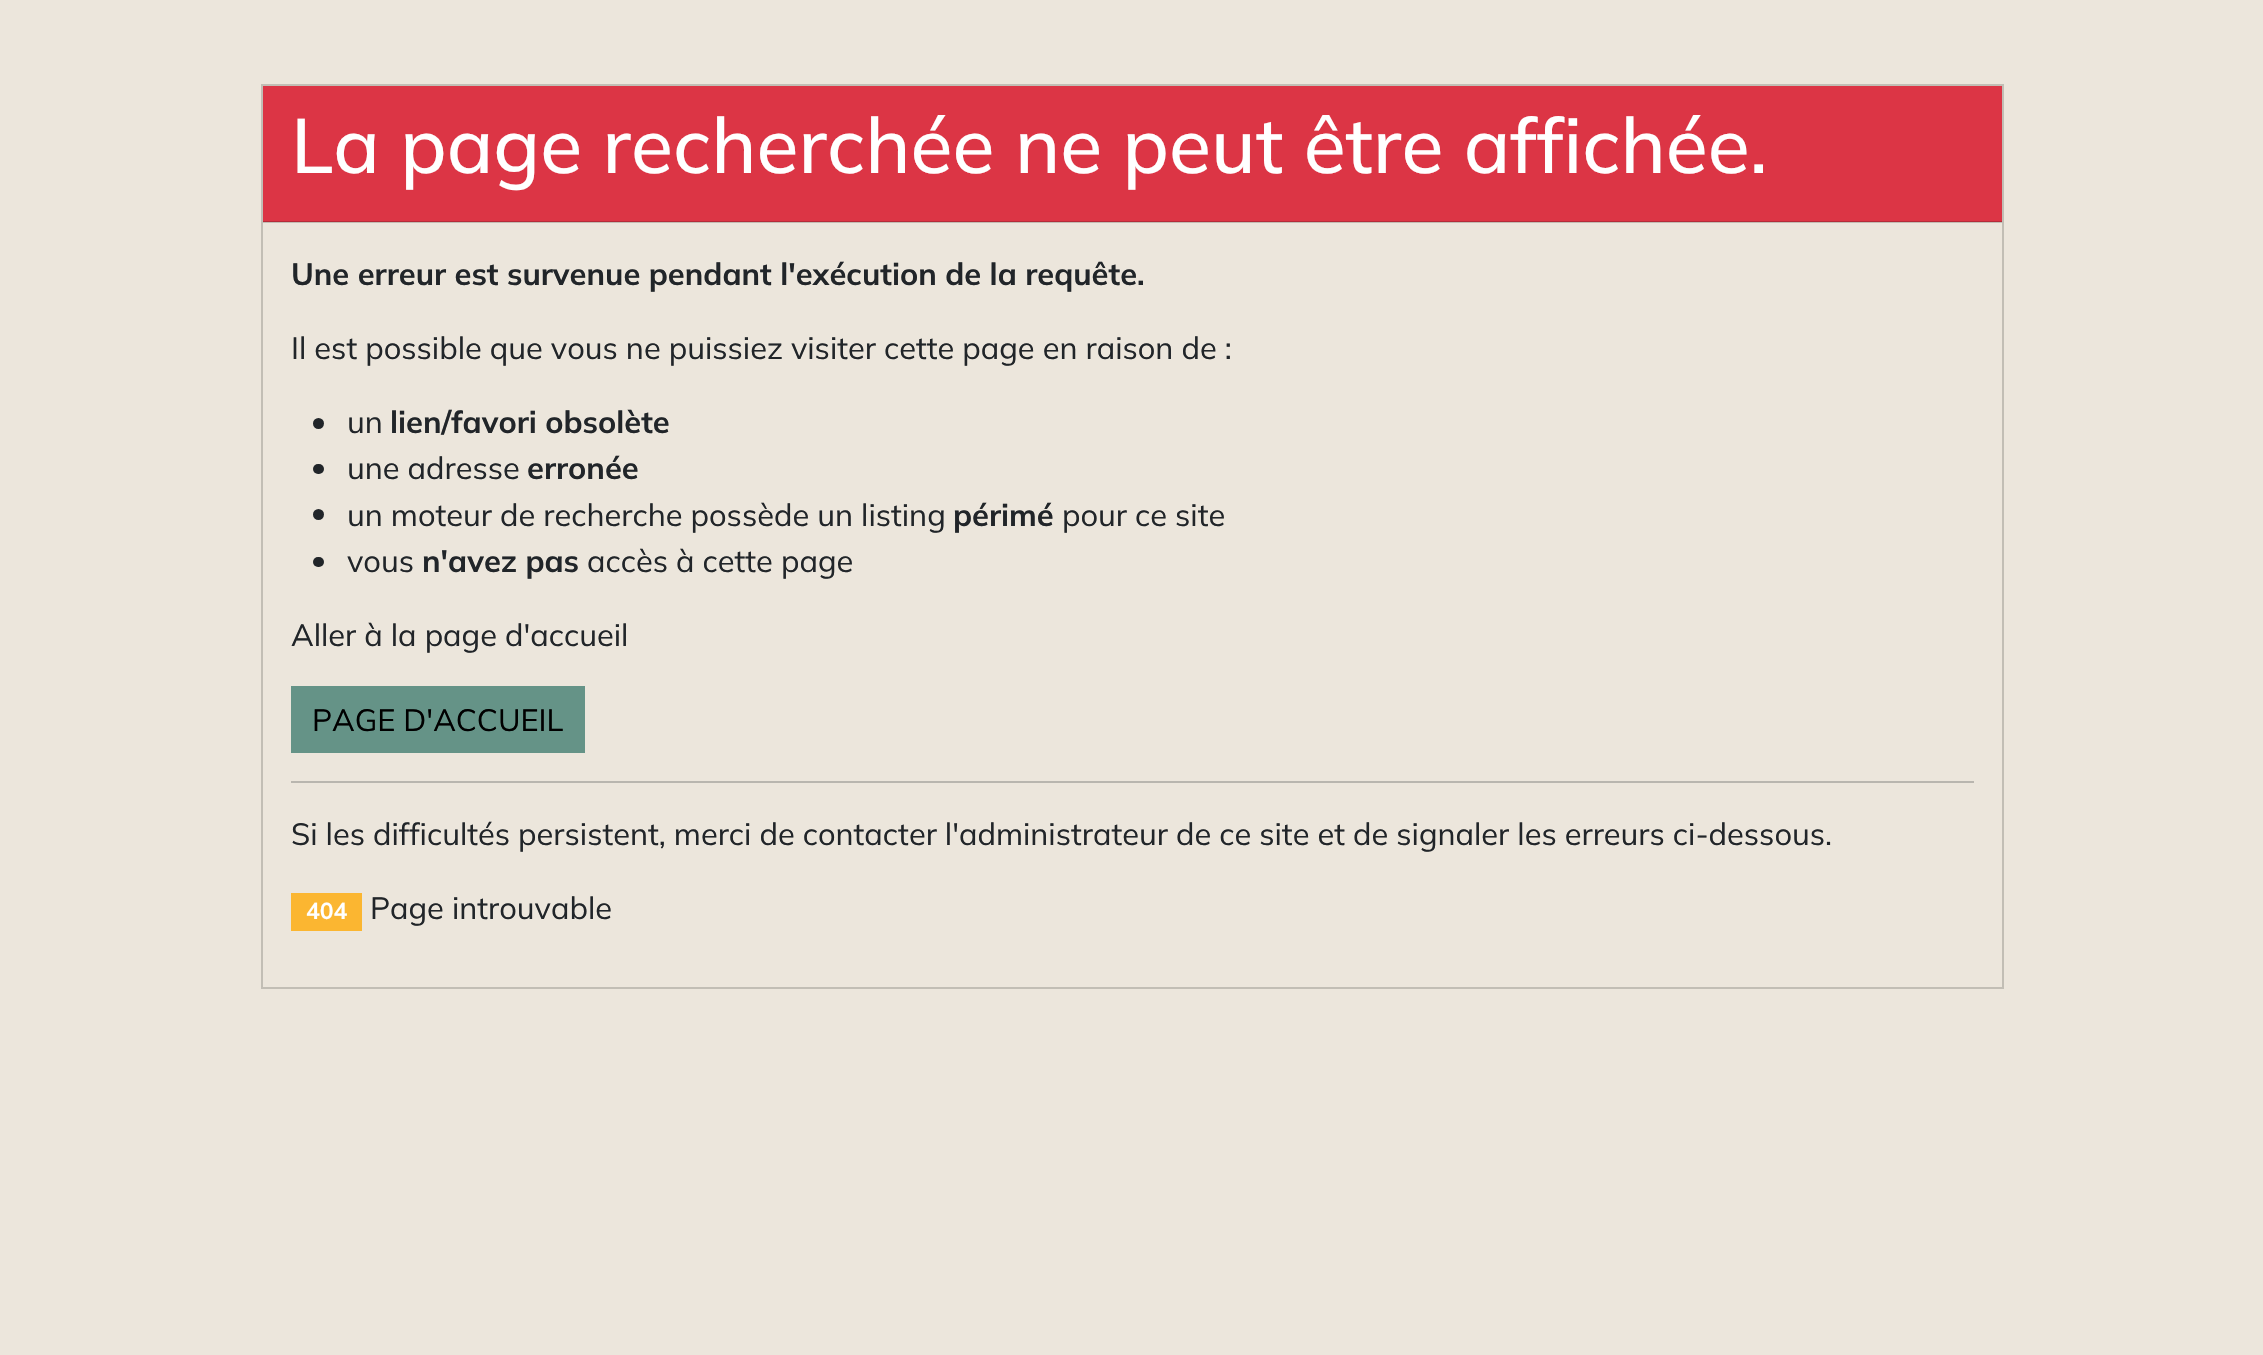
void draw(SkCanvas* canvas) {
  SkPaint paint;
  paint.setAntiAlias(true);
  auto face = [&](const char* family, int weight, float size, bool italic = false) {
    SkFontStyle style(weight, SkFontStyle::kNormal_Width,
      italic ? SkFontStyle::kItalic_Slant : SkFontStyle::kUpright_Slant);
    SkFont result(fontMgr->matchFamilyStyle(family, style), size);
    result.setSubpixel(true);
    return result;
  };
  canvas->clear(0xffece6dc);
  paint.setColor(0xffc2bdb4);
  canvas->drawRect(SkRect::MakeXYWH(263, 222, 1739, 1), paint);
  paint.setStroke(true);
  paint.setStrokeWidth(2);
  paint.setColor(0xffc2beb5);
  canvas->drawRect(SkRect::MakeXYWH(262, 85, 1741, 903), paint);
  paint.setStroke(false);
  paint.setColor(0xffdc3545);
  canvas->drawRect(SkRect::MakeXYWH(263, 86, 1739, 135), paint);
  paint.setColor(0xffb42b39);
  canvas->drawRect(SkRect::MakeXYWH(263, 221, 1739, 1), paint);
  paint.setColor(0xff212529);
  canvas->drawCircle(318.5f, 423.5f, 5.5f, paint);
  canvas->drawRoundRect(SkRect::MakeXYWH(313, 464, 11, 10), 5, 5, paint);
  canvas->drawCircle(318.5f, 514.5f, 5.5f, paint);
  canvas->drawRoundRect(SkRect::MakeXYWH(313, 557, 11, 10), 5, 5, paint);
  {
    const struct { float x, y, w, h; SkColor color; } items[] = {
      {291, 686, 294, 67, 0xff659387},
      {291, 781, 1683, 2, 0xffb9b6af},
      {291, 893, 71, 38, 0xfffbb631},
    };
    for (auto [x, y, w, h, color] : items) {
      paint.setColor(color);
      canvas->drawRect(SkRect::MakeXYWH(x, y, w, h), paint);
    }
  }
  auto f0 = face("Mulish", 500, 77);
  paint.setColor(0xffffffff);
  canvas->drawString("La page recherchée ne peut être affichée.", 291, 173, f0, paint);
  auto f1 = face("Mulish", 700, 30.8f);
  paint.setColor(0xff212529);
  canvas->drawString("Une erreur est survenue pendant l'exécution de la requête.", 291, 285, f1, paint);
  auto f2 = face("Mulish", 400, 30.8f);
  canvas->drawString("Il est possible que vous ne puissiez visiter cette page en raison de :", 291, 359, f2, paint);
  canvas->drawString("un", 347, 433, f2, paint);
  canvas->drawString("lien/favori obsolète", 390, 433, f1, paint);
  canvas->drawString("une adresse", 347, 479, f2, paint);
  canvas->drawString("erronée", 527, 479, f1, paint);
  canvas->drawString("un moteur de recherche possède un listing", 347, 526, f2, paint);
  canvas->drawString("périmé", 953, 526, f1, paint);
  canvas->drawString("pour ce site", 1062, 526, f2, paint);
  canvas->drawString("vous", 347, 572, f2, paint);
  canvas->drawString("n'avez pas", 422, 572, f1, paint);
  canvas->drawString("accès à cette page", 587, 572, f2, paint);
  canvas->drawString("Aller à la page d'accueil", 291, 646, f2, paint);
  paint.setColor(0xff000000);
  canvas->drawString("PAGE D'ACCUEIL", 312, 731, f2, paint);
  paint.setColor(0xff212529);
  canvas->drawString("Si les difficultés persistent, merci de contacter l'administrateur de ce site et de signaler les erreurs ci-dessous.", 291, 845, f2, paint);
  auto f3 = face("Mulish", 700, 23);
  paint.setColor(0xffffffff);
  canvas->drawString("404", 306, 919, f3, paint);
  paint.setColor(0xff212529);
  canvas->drawString("Page introuvable", 370, 919, f2, paint);
}
